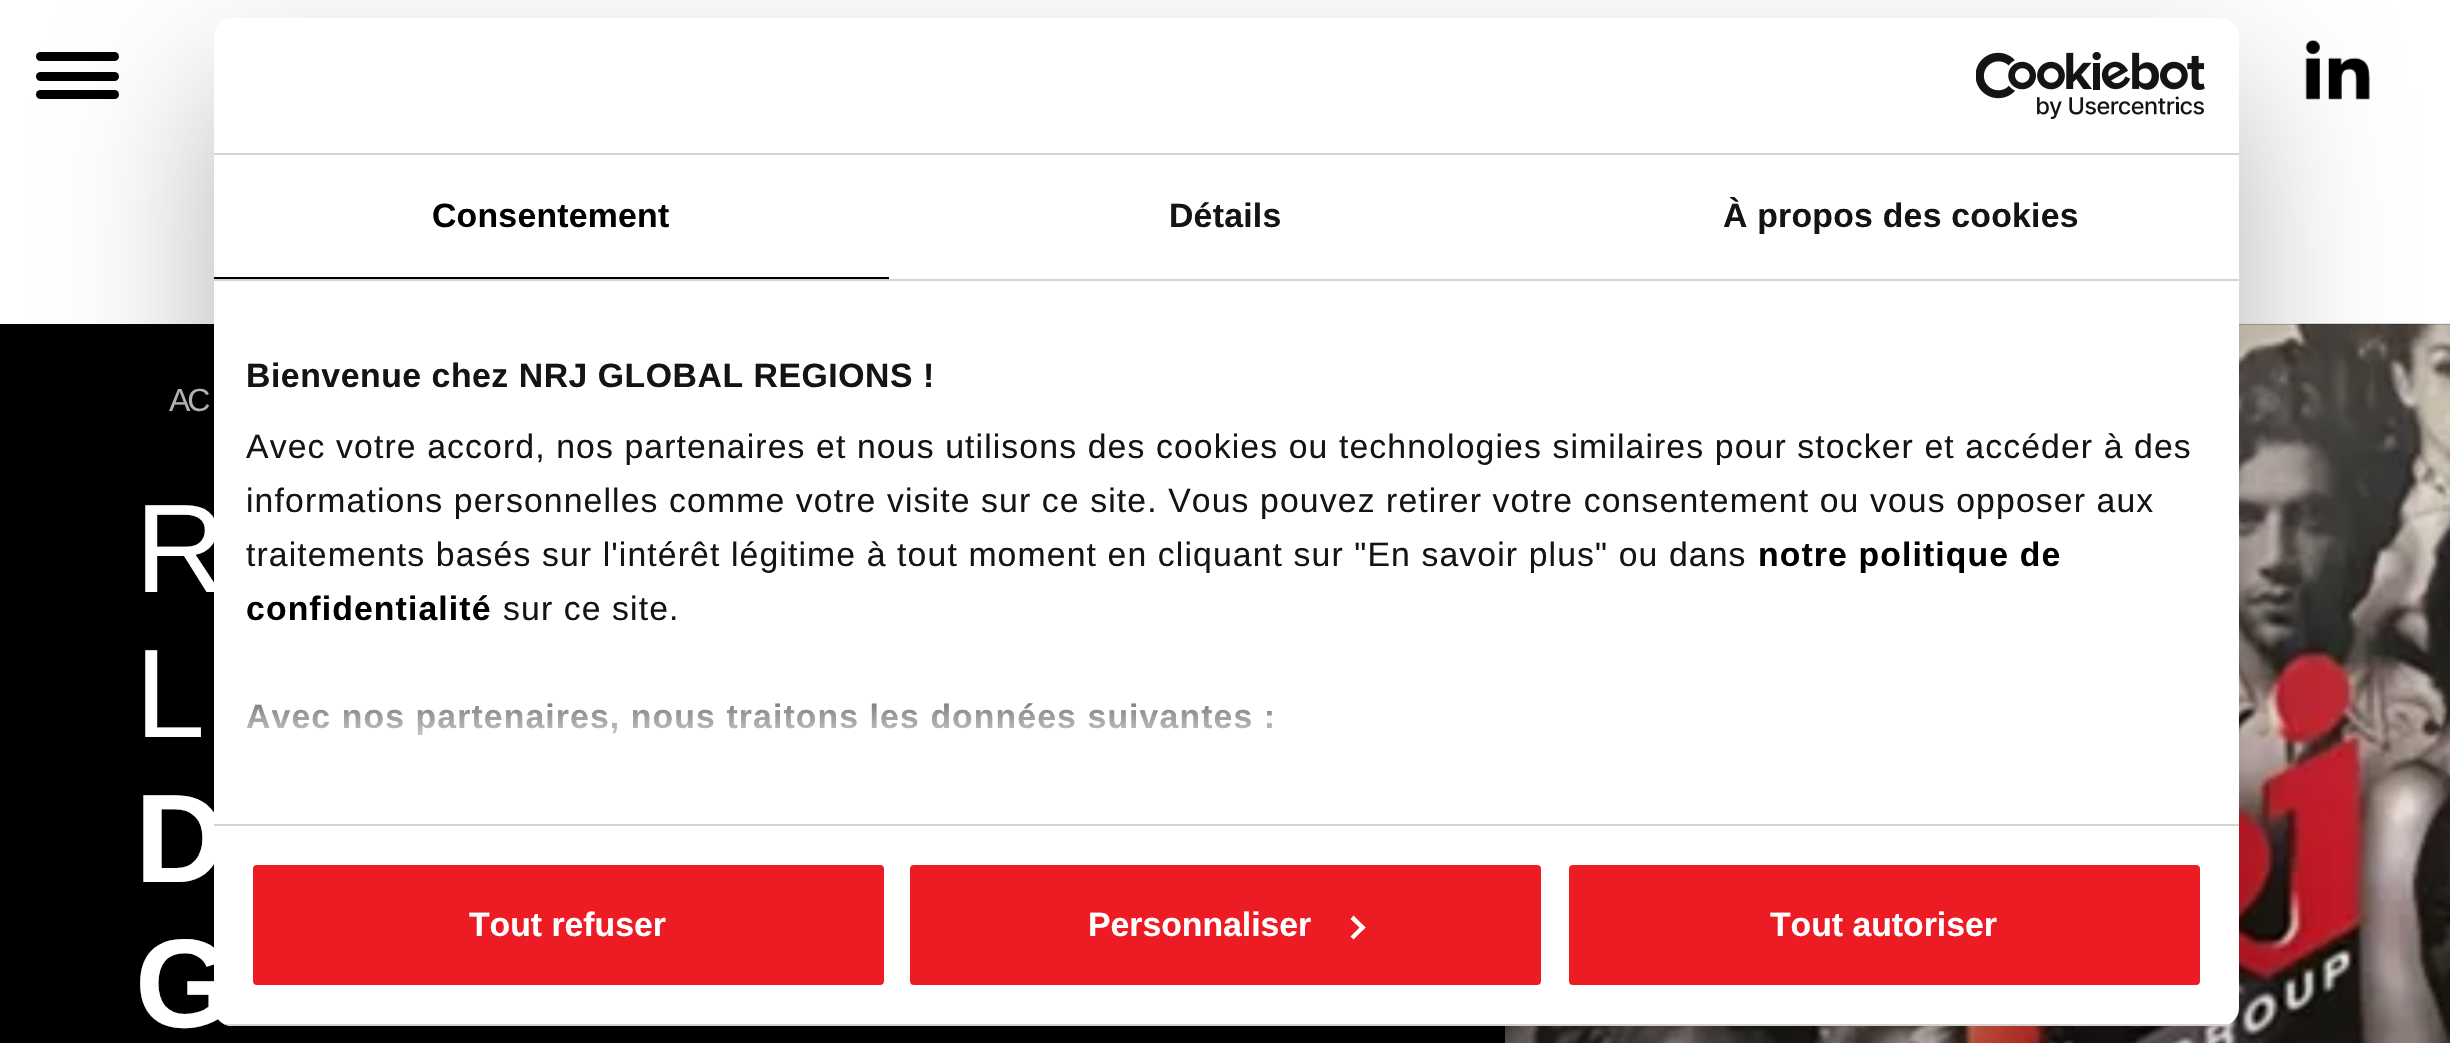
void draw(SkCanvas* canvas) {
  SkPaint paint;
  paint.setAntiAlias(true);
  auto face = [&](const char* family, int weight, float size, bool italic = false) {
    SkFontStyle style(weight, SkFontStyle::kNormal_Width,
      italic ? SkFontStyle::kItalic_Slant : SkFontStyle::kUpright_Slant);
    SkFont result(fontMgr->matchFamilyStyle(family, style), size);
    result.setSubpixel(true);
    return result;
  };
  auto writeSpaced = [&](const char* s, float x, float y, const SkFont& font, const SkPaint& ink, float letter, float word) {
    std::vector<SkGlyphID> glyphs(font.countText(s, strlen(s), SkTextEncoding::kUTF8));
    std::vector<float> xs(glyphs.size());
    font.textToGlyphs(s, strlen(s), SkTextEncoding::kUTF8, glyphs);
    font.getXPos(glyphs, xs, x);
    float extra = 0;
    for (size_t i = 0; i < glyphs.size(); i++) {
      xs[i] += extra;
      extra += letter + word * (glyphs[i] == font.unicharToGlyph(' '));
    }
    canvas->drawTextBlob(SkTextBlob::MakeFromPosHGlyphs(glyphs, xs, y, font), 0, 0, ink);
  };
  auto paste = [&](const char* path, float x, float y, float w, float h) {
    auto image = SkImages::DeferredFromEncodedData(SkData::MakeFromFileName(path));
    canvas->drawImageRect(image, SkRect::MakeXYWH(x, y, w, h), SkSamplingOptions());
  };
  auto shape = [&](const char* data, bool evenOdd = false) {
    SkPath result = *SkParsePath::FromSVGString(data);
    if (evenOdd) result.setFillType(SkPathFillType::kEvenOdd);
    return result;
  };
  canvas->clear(0xffffffff);
  paint.setColor(0xff000000);
  canvas->drawRoundRect(SkRect::MakeXYWH(36, 72, 83, 9), 4.5f, 4.5f, paint);
  canvas->drawRoundRect(SkRect::MakeXYWH(36, 52, 83, 9), 4.5f, 4.5f, paint);
  canvas->drawRoundRect(SkRect::MakeXYWH(36, 90, 83, 9), 4.5f, 4.5f, paint);
  paste("img/1.png", 2305, 39, 65, 61);
  canvas->drawRect(SkRect::MakeXYWH(0, 324, 2450, 719), paint);
  paste("img/2.png", 1505, 323, 945, 720);
  paint.setColor(0x4d000000);
  paint.setMaskFilter(SkMaskFilter::MakeBlur(kNormal_SkBlurStyle, 76.5f));
  canvas->drawRoundRect(SkRect::MakeXYWH(214, 90, 2025, 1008), 18, 18, paint);
  paint.setMaskFilter(nullptr);
  paint.setColor(0xffffffff);
  canvas->drawRoundRect(SkRect::MakeXYWH(214, 18, 2025, 1008), 18, 18, paint);
  paint.setColor(0xffd4d3d3);
  canvas->drawRect(SkRect::MakeXYWH(214, 153, 2025, 2), paint);
  paste("img/3.png", 1976, 52, 229, 67);
  canvas->drawRect(SkRect::MakeXYWH(214, 279, 2025, 2), paint);
  paint.setColor(0xff000000);
  canvas->drawRect(SkRect::MakeXYWH(214, 277, 675, 2), paint);
  paint.setColor(0xffed1c24);
  canvas->drawRoundRect(SkRect::MakeXYWH(250.5f, 862.5f, 636, 125), 6.5f, 6.5f, paint);
  paint.setStroke(true);
  paint.setStrokeWidth(5);
  paint.setColor(0xffffffff);
  canvas->drawRoundRect(SkRect::MakeXYWH(250.5f, 862.5f, 636, 125), 6.5f, 6.5f, paint);
  paint.setStroke(false);
  paint.setColor(0xffed1c24);
  canvas->drawRoundRect(SkRect::MakeXYWH(907.5f, 862.5f, 636, 125), 6.5f, 6.5f, paint);
  paint.setStroke(true);
  paint.setColor(0xffffffff);
  canvas->drawRoundRect(SkRect::MakeXYWH(907.5f, 862.5f, 636, 125), 6.5f, 6.5f, paint);
  paint.setStroke(false);
  canvas->drawPath(shape("M1353.5 915.5L1365.5 927.5L1362.5 930.5L1350.5 919Z"), paint);
  canvas->drawPath(shape("M1362.5 924.5L1365.5 927.5L1353.5 939.5L1350.5 936.5Z"), paint);
  paint.setColor(0xffed1c24);
  canvas->drawRoundRect(SkRect::MakeXYWH(1566.5f, 862.5f, 636, 125), 6.5f, 6.5f, paint);
  paint.setStroke(true);
  paint.setColor(0xffffffff);
  canvas->drawRoundRect(SkRect::MakeXYWH(1566.5f, 862.5f, 636, 125), 6.5f, 6.5f, paint);
  auto f0 = face("Liberation Sans", 400, 32);
  paint.setStroke(false);
  paint.setColor(0xffb2b1b1);
  writeSpaced("AC", 169, 411, f0, paint, -3, 0);
  auto f1 = face("Liberation Sans", 400, 126);
  paint.setColor(0xffffffff);
  writeSpaced("R", 135, 592, f1, paint, -3, 0);
  writeSpaced("L", 135, 737, f1, paint, -3, 0);
  auto f2 = face("Liberation Sans", 700, 126);
  writeSpaced("D", 135, 882, f2, paint, -3, 0);
  writeSpaced("G", 135, 1027, f2, paint, -3, 0);
  auto f3 = face("Liberation Sans", 700, 33.75f);
  paint.setColor(0xff000000);
  writeSpaced("Consentement", 432, 227, f3, paint, 0.25f, 0);
  paint.setColor(0xff141414);
  writeSpaced("Détails", 1169, 227, f3, paint, 0.25f, 0);
  writeSpaced("À propos des cookies", 1723, 227, f3, paint, 0.25f, 0);
  paint.setColor(0xffd4d3d3);
  canvas->drawRect(SkRect::MakeXYWH(214, 824, 2025, 2), paint);
  paint.setColor(0xff141414);
  writeSpaced("Bienvenue chez NRJ GLOBAL REGIONS !", 246, 387, f3, paint, 0.55f, 0);
  auto f4 = face("Liberation Sans", 400, 33.75f);
  {
    const struct { const char* s; float x, y; } items[] = {
      {"Avec votre accord, nos partenaires et nous utilisons des cookies ou technologies similaires pour stocker et accéder à des", 246, 458},
      {"informations personnelles comme votre visite sur ce site. Vous pouvez retirer votre consentement ou vous opposer aux", 246, 512},
      {"traitements basés sur l'intérêt légitime à tout moment en cliquant sur \"En savoir plus\" ou dans", 246, 566},
    };
    for (auto [s, x, y] : items) {
      writeSpaced(s, x, y, f4, paint, 1.12f, 0);
    }
  }
  paint.setColor(0xff000000);
  writeSpaced("notre politique de", 1758, 566, f3, paint, 1.12f, 0);
  writeSpaced("confidentialité", 246, 620, f3, paint, 1.12f, 0);
  paint.setColor(0xff141414);
  writeSpaced("sur ce site.", 503, 620, f4, paint, 1.12f, 0);
  writeSpaced("Avec nos partenaires, nous traitons les données suivantes :", 246, 728, f3, paint, 1.12f, 0);
  {
    const SkColor colors[] = {0xffffffff, 0xccffffff, 0x00ffffff};
    const float stops[] = {0, 0.5f, 1};
    const SkPoint ends[] = {{1212, 824}, {1212, 655}};
    paint.setShader(SkGradientShader::MakeLinear(ends, colors, stops, 3, SkTileMode::kClamp));
    paint.setAlpha(255);
  }
  canvas->drawRect(SkRect::MakeXYWH(247, 703, 1026, 32), paint);
  canvas->save();
  canvas->clipPath(shape("M232 18H2221C2231 18 2239 26 2239 36V1008C2239 1018 2231 1026 2221 1026H232C222 1026 214 1018 214 1008V36C214 26 222 18 232 18Z"), true);
  paint.setShader(nullptr);
  paint.setColor(0xffd4d3d3);
  canvas->drawRect(SkRect::MakeXYWH(224, 1024, 2005, 2), paint);
  canvas->restore();
  paint.setColor(0xffffffff);
  {
    const struct { const char* s; float x, y; } items[] = {
      {"Tout refuser", 469, 936},
      {"Personnaliser", 1088, 936},
      {"Tout autoriser", 1770, 936},
    };
    for (auto [s, x, y] : items) {
      canvas->drawString(s, x, y, f3, paint);
    }
  }
}
